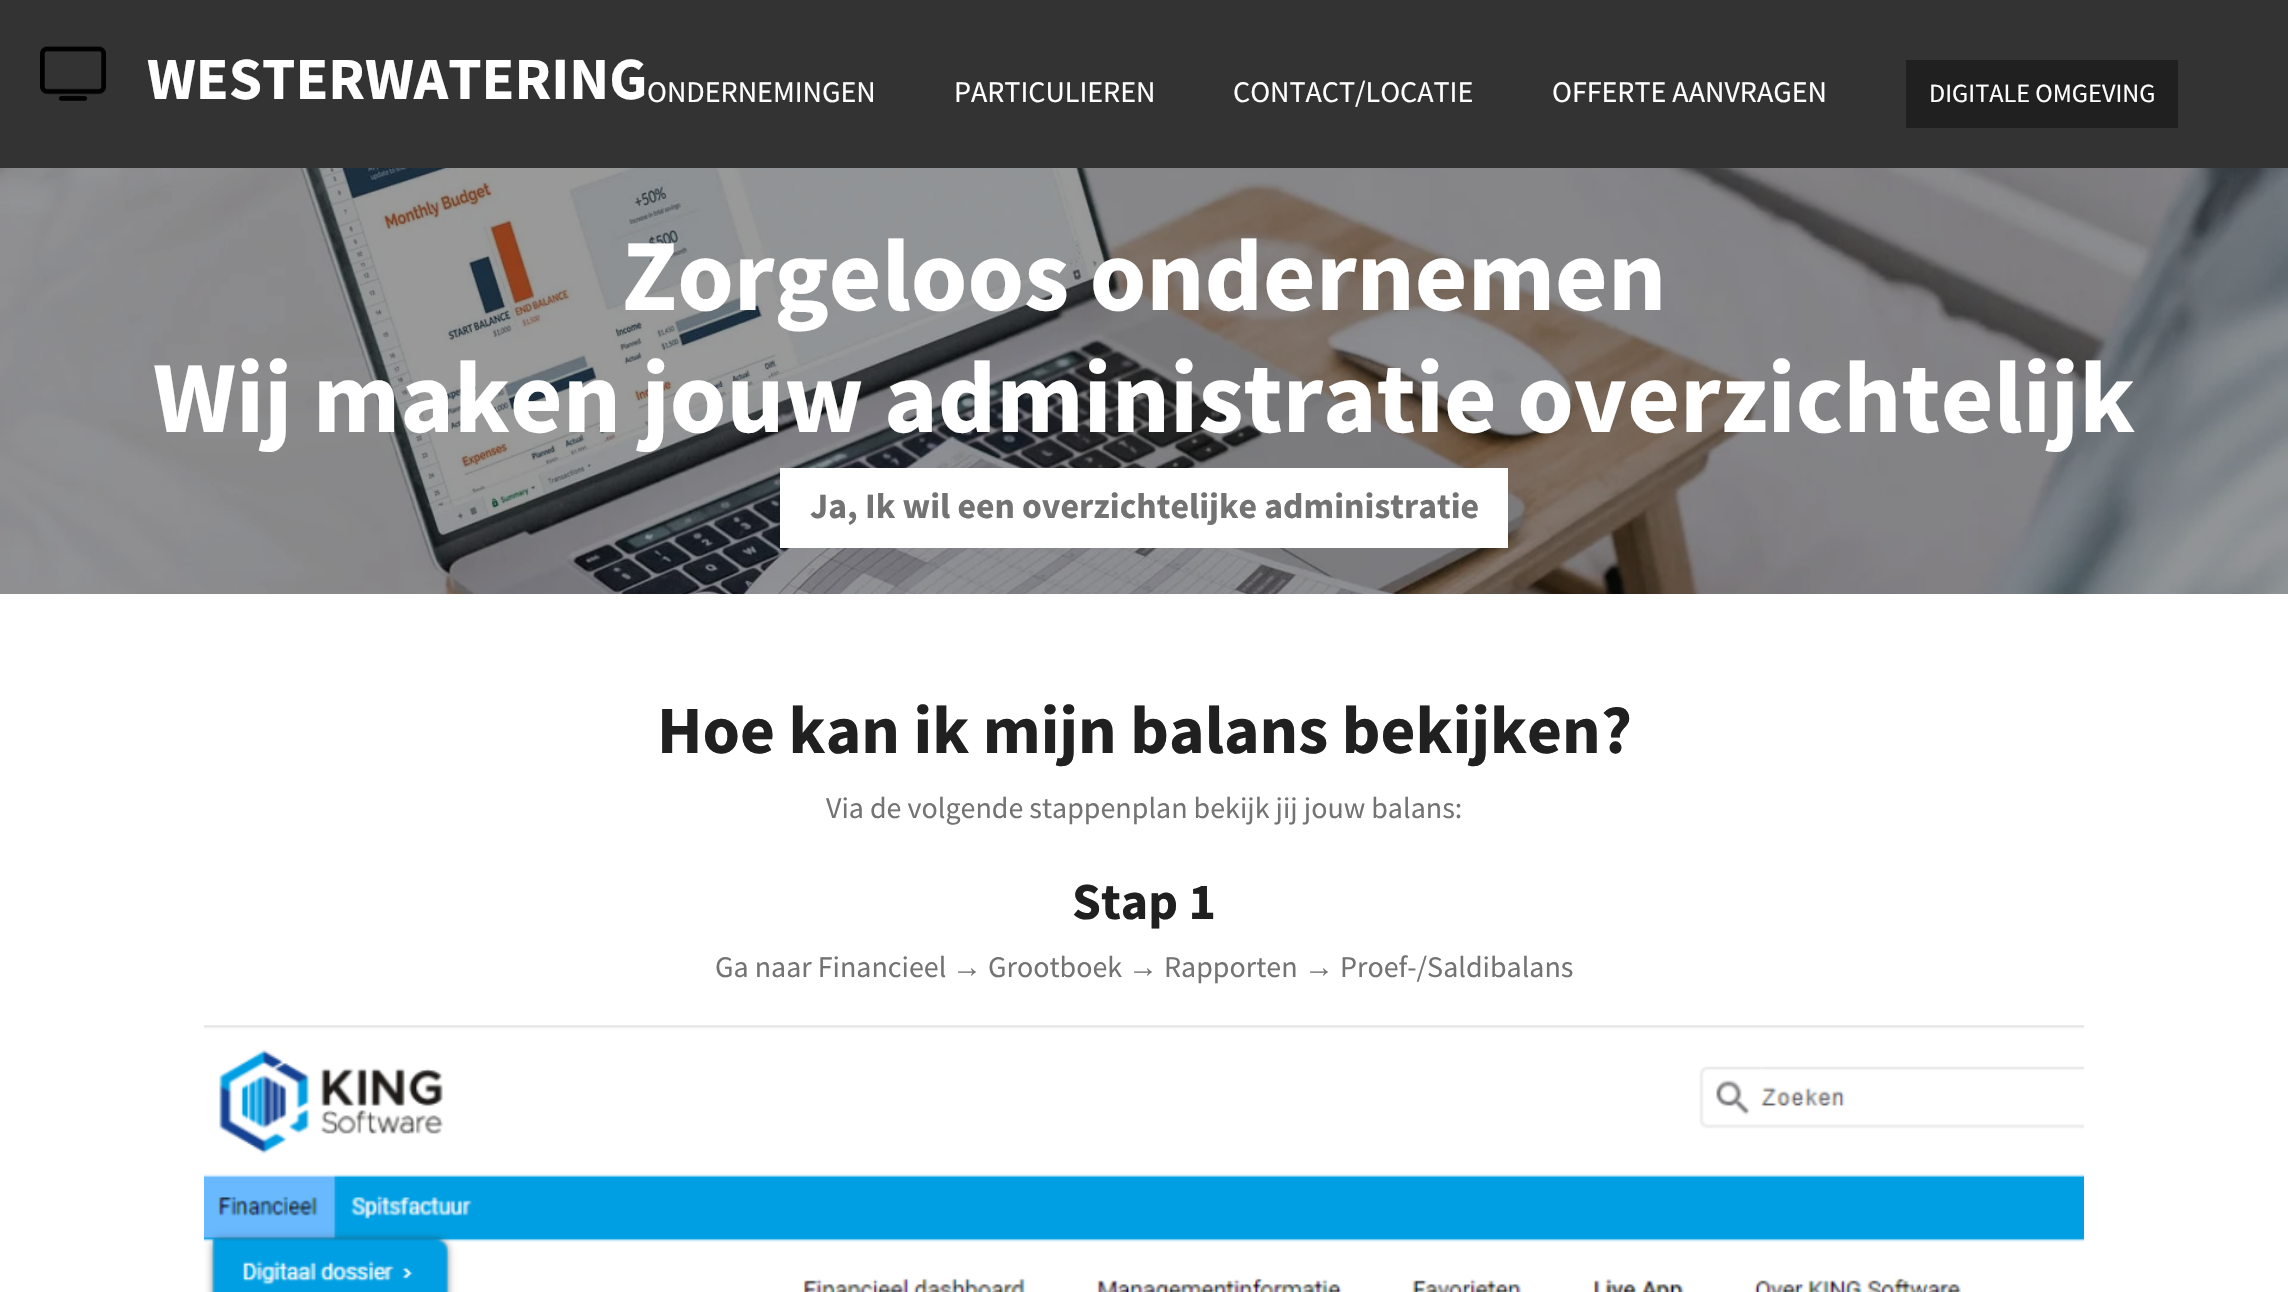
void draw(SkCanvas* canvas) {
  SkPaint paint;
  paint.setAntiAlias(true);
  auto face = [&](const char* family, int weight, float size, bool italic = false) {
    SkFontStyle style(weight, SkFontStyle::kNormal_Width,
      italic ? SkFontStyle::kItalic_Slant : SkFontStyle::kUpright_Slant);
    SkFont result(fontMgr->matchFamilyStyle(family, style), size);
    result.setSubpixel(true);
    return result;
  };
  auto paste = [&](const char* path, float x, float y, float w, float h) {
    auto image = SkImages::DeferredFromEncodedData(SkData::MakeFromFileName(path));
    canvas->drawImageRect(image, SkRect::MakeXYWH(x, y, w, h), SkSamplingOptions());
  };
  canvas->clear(0xff333333);
  paste("img/1.png", 40, 46, 66, 55);
  paint.setColor(0xff202020);
  canvas->drawRect(SkRect::MakeXYWH(1906, 60, 272, 68), paint);
  paste("img/2.png", 0, 168, 2288, 426);
  paint.setColor(0xffffffff);
  canvas->drawRect(SkRect::MakeXYWH(780, 468, 728, 80), paint);
  canvas->drawRect(SkRect::MakeXYWH(0, 594, 2288, 698), paint);
  paste("img/3.png", 204, 1025, 1880, 267);
  auto f0 = face("Source Sans Pro", 700, 60);
  canvas->drawString("WESTERWATERING", 147, 99, f0, paint);
  auto f1 = face("Source Sans Pro", 400, 30);
  {
    const struct { const char* s; float x, y; } items[] = {
      {"ONDERNEMINGEN", 647, 102},
      {"PARTICULIEREN", 954, 102},
      {"CONTACT/LOCATIE", 1233, 102},
      {"OFFERTE AANVRAGEN", 1552, 102},
    };
    for (auto [s, x, y] : items) {
      canvas->drawString(s, x, y, f1, paint);
    }
  }
  auto f2 = face("Source Sans Pro", 400, 26.25f);
  canvas->drawString("DIGITALE OMGEVING", 1929, 102, f2, paint);
  auto f3 = face("Source Sans Pro", 700, 102);
  canvas->drawString("Zorgeloos ondernemen", 622, 310, f3, paint);
  canvas->drawString("Wij maken jouw administratie overzichtelijk", 153, 432, f3, paint);
  auto f4 = face("Source Sans Pro", 700, 35.75f);
  paint.setColor(0xff737373);
  canvas->drawString("Ja, Ik wil een overzichtelijke administratie", 810, 518, f4, paint);
  auto f5 = face("Source Sans Pro", 700, 67.6f);
  paint.setColor(0xff202020);
  canvas->drawString("Hoe kan ik mijn balans bekijken?", 657, 753, f5, paint);
  paint.setColor(0xff737373);
  canvas->drawString("Via de volgende stappenplan bekijk jij jouw balans:", 826, 818, f1, paint);
  auto f6 = face("Source Sans Pro", 700, 52);
  paint.setColor(0xff202020);
  canvas->drawString("Stap 1", 1072, 919, f6, paint);
  paint.setColor(0xff737373);
  canvas->drawString("Ga naar Financieel", 715, 977, f1, paint);
  auto f7 = face("Liberation Serif", 400, 30);
  canvas->drawString("→", 952, 977, f7, paint);
  canvas->drawString("Grootboek", 988, 977, f1, paint);
  canvas->drawString("→", 1128, 977, f7, paint);
  canvas->drawString("Rapporten", 1164, 977, f1, paint);
  canvas->drawString("→", 1304, 977, f7, paint);
  canvas->drawString("Proef-/Saldibalans", 1340, 977, f1, paint);
}
